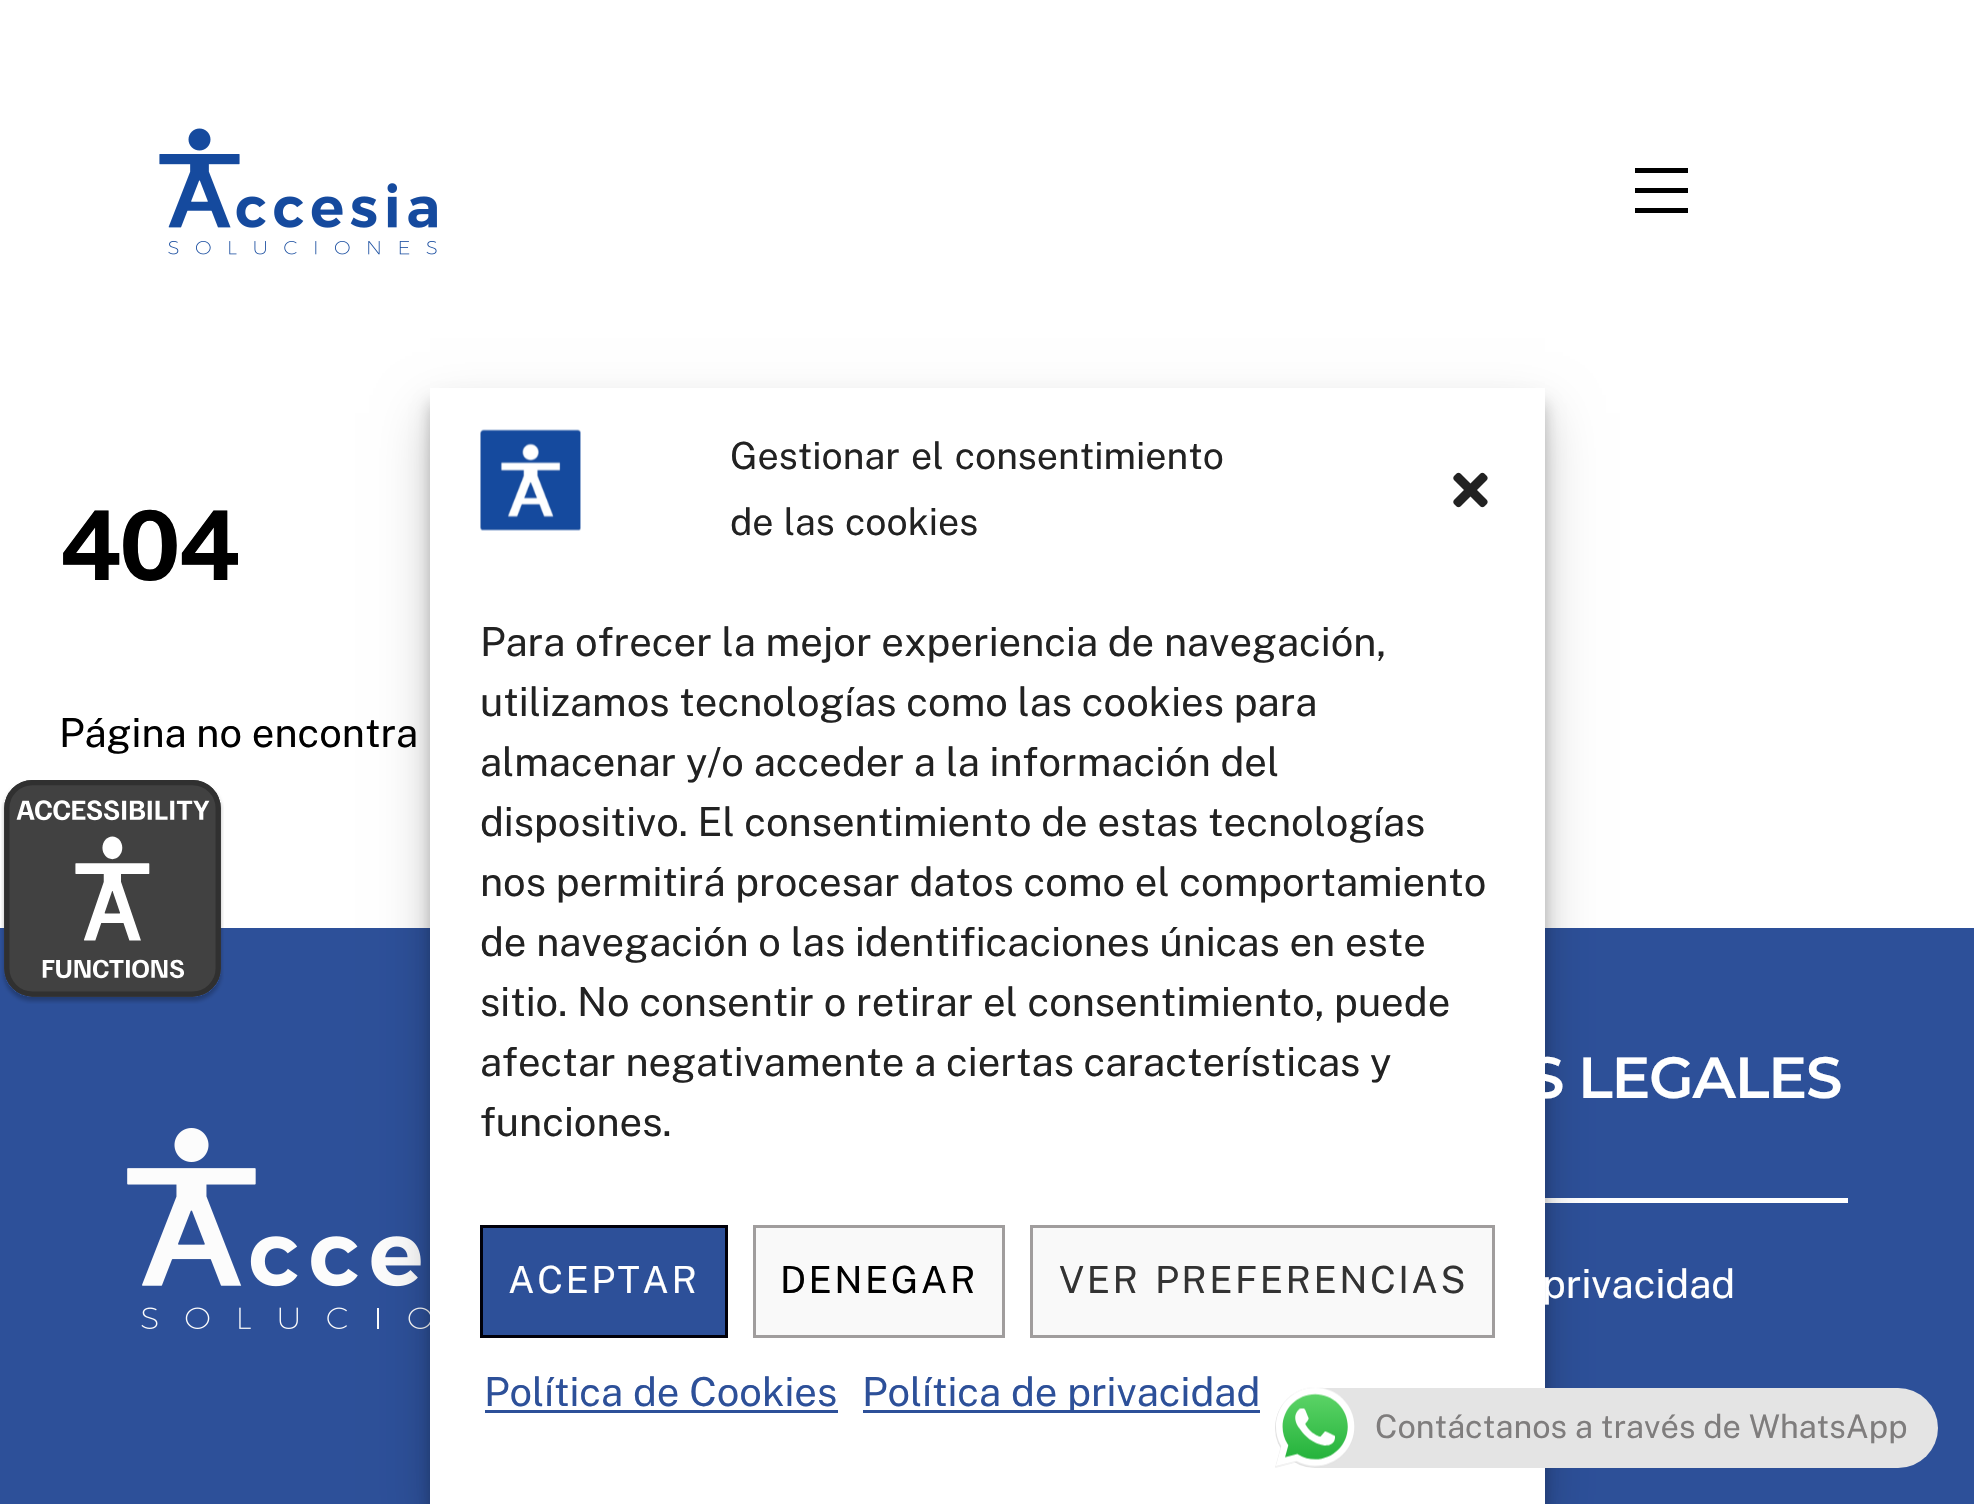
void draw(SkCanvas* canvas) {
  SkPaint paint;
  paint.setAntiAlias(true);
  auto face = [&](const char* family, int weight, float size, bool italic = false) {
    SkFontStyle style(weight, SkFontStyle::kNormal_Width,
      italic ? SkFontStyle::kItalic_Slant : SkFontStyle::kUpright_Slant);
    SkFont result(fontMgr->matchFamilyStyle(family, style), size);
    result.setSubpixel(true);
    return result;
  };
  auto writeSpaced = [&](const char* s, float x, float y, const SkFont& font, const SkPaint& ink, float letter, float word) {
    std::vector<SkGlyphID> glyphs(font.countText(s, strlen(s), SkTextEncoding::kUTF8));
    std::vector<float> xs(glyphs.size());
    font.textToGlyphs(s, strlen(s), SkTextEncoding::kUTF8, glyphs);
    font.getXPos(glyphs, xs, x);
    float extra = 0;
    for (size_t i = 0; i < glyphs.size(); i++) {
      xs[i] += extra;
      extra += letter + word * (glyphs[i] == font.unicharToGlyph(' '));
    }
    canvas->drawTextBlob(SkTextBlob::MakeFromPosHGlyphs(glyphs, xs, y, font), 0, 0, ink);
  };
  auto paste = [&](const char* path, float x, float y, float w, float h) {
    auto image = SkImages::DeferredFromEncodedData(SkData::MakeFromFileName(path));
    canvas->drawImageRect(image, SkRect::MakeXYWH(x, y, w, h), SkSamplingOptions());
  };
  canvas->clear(0xffffffff);
  paste("img/1.png", 159, 128, 278, 127);
  {
    const struct { float x, y, w, h; SkColor color; } items[] = {
      {1635, 208, 53, 5, 0xff000000},
      {1635, 168, 53, 5, 0xff000000},
      {1635, 188, 53, 5, 0xff000000},
      {0, 928, 1974, 576, 0xff2d5099},
    };
    for (auto [x, y, w, h, color] : items) {
      paint.setColor(color);
      canvas->drawRect(SkRect::MakeXYWH(x, y, w, h), paint);
    }
  }
  paste("img/5.png", 127, 1128, 303, 201);
  paint.setColor(0xffffffff);
  canvas->drawRect(SkRect::MakeXYWH(1545, 1198, 303, 5), paint);
  paint.setColor(0x3b000000);
  paint.setMaskFilter(SkMaskFilter::MakeBlur(kNormal_SkBlurStyle, 7.5f));
  canvas->drawRect(SkRect::MakeXYWH(430, 403, 1115, 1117), paint);
  paint.setMaskFilter(nullptr);
  paint.setColor(0x30000000);
  paint.setMaskFilter(SkMaskFilter::MakeBlur(kNormal_SkBlurStyle, 25));
  canvas->drawRect(SkRect::MakeXYWH(430, 413, 1115, 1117), paint);
  paint.setMaskFilter(nullptr);
  paint.setColor(0xffffffff);
  canvas->drawRect(SkRect::MakeXYWH(430, 388, 1115, 1116), paint);
  paste("img/2.png", 480, 429, 101, 102);
  paste("img/3.png", 1453, 472, 35, 36);
  paint.setColor(0xff2d5099);
  canvas->drawRect(SkRect::MakeXYWH(481.5f, 1226.5f, 245, 110), paint);
  paint.setStroke(true);
  paint.setStrokeWidth(3);
  paint.setColor(0xff00000a);
  canvas->drawRect(SkRect::MakeXYWH(481.5f, 1226.5f, 245, 110), paint);
  paint.setStroke(false);
  paint.setColor(0xfff9f9f9);
  canvas->drawRect(SkRect::MakeXYWH(754.5f, 1226.5f, 249, 110), paint);
  paint.setStroke(true);
  paint.setColor(0xffa09d9d);
  canvas->drawRect(SkRect::MakeXYWH(754.5f, 1226.5f, 249, 110), paint);
  paint.setStroke(false);
  paint.setColor(0xfff9f9f9);
  canvas->drawRect(SkRect::MakeXYWH(1031.5f, 1226.5f, 462, 110), paint);
  paint.setStroke(true);
  paint.setColor(0xffa09d9d);
  canvas->drawRect(SkRect::MakeXYWH(1031.5f, 1226.5f, 462, 110), paint);
  paint.setStroke(false);
  paint.setColor(0xff2d5099);
  canvas->drawRect(SkRect::MakeXYWH(485, 1410, 353, 3), paint);
  canvas->drawRect(SkRect::MakeXYWH(863, 1410, 397, 3), paint);
  paste("img/4.png", 1, 780, 223, 224);
  paint.setColor(0xffe4e4e4);
  canvas->drawRoundRect(SkRect::MakeXYWH(1275, 1388, 663, 80), 40, 40, paint);
  paste("img/6.png", 1275, 1387, 80, 81);
  auto f0 = face("Public Sans", 700, 96);
  paint.setColor(0xff000000);
  writeSpaced("404", 59, 580, f0, paint, -3, 0);
  auto f1 = face("Public Sans", 400, 40);
  canvas->drawString("Página no encontra", 59, 747, f1, paint);
  auto f2 = face("Public Sans", 400, 37.5f);
  paint.setColor(0xff222222);
  writeSpaced("Gestionar el consentimiento", 730, 469, f2, paint, 0, 2);
  writeSpaced("de las cookies", 730, 535, f2, paint, 0, 1);
  {
    const struct { const char* s; float x, y; } items[] = {
      {"Para ofrecer la mejor experiencia de navegación,", 480, 656},
      {"utilizamos tecnologías como las cookies para", 480, 716},
      {"almacenar y/o acceder a la información del", 480, 776},
      {"dispositivo. El consentimiento de estas tecnologías", 480, 836},
      {"nos permitirá procesar datos como el comportamiento", 480, 896},
      {"de navegación o las identificaciones únicas en este", 480, 956},
      {"sitio. No consentir o retirar el consentimiento, puede", 480, 1016},
      {"afectar negativamente a ciertas características y", 480, 1076},
      {"funciones.", 480, 1136},
    };
    for (auto [s, x, y] : items) {
      canvas->drawString(s, x, y, f1, paint);
    }
  }
  paint.setColor(0xffffffff);
  writeSpaced("ACEPTAR", 508, 1293, f2, paint, 2.5f, 0);
  paint.setColor(0xff000000);
  writeSpaced("DENEGAR", 780, 1293, f2, paint, 2.5f, 0);
  paint.setColor(0xff333333);
  writeSpaced("VER PREFERENCIAS", 1059, 1293, f2, paint, 2.5f, 3);
  paint.setColor(0xff2d5099);
  canvas->drawString("Política de Cookies", 484, 1406, f1, paint);
  canvas->drawString("Política de privacidad", 862, 1406, f1, paint);
  auto f3 = face("Montserrat", 100, 58);
  paint.setColor(0xffffffff);
  writeSpaced("S LEGALES", 1528, 1098, f3, paint, -1.25f, 0);
  canvas->drawString("privacidad", 1542, 1298, f1, paint);
  auto f4 = face("Public Sans", 400, 32.5f);
  paint.setColor(0xff7f7d7d);
  canvas->drawString("Contáctanos a través de WhatsApp", 1375, 1438, f4, paint);
}
